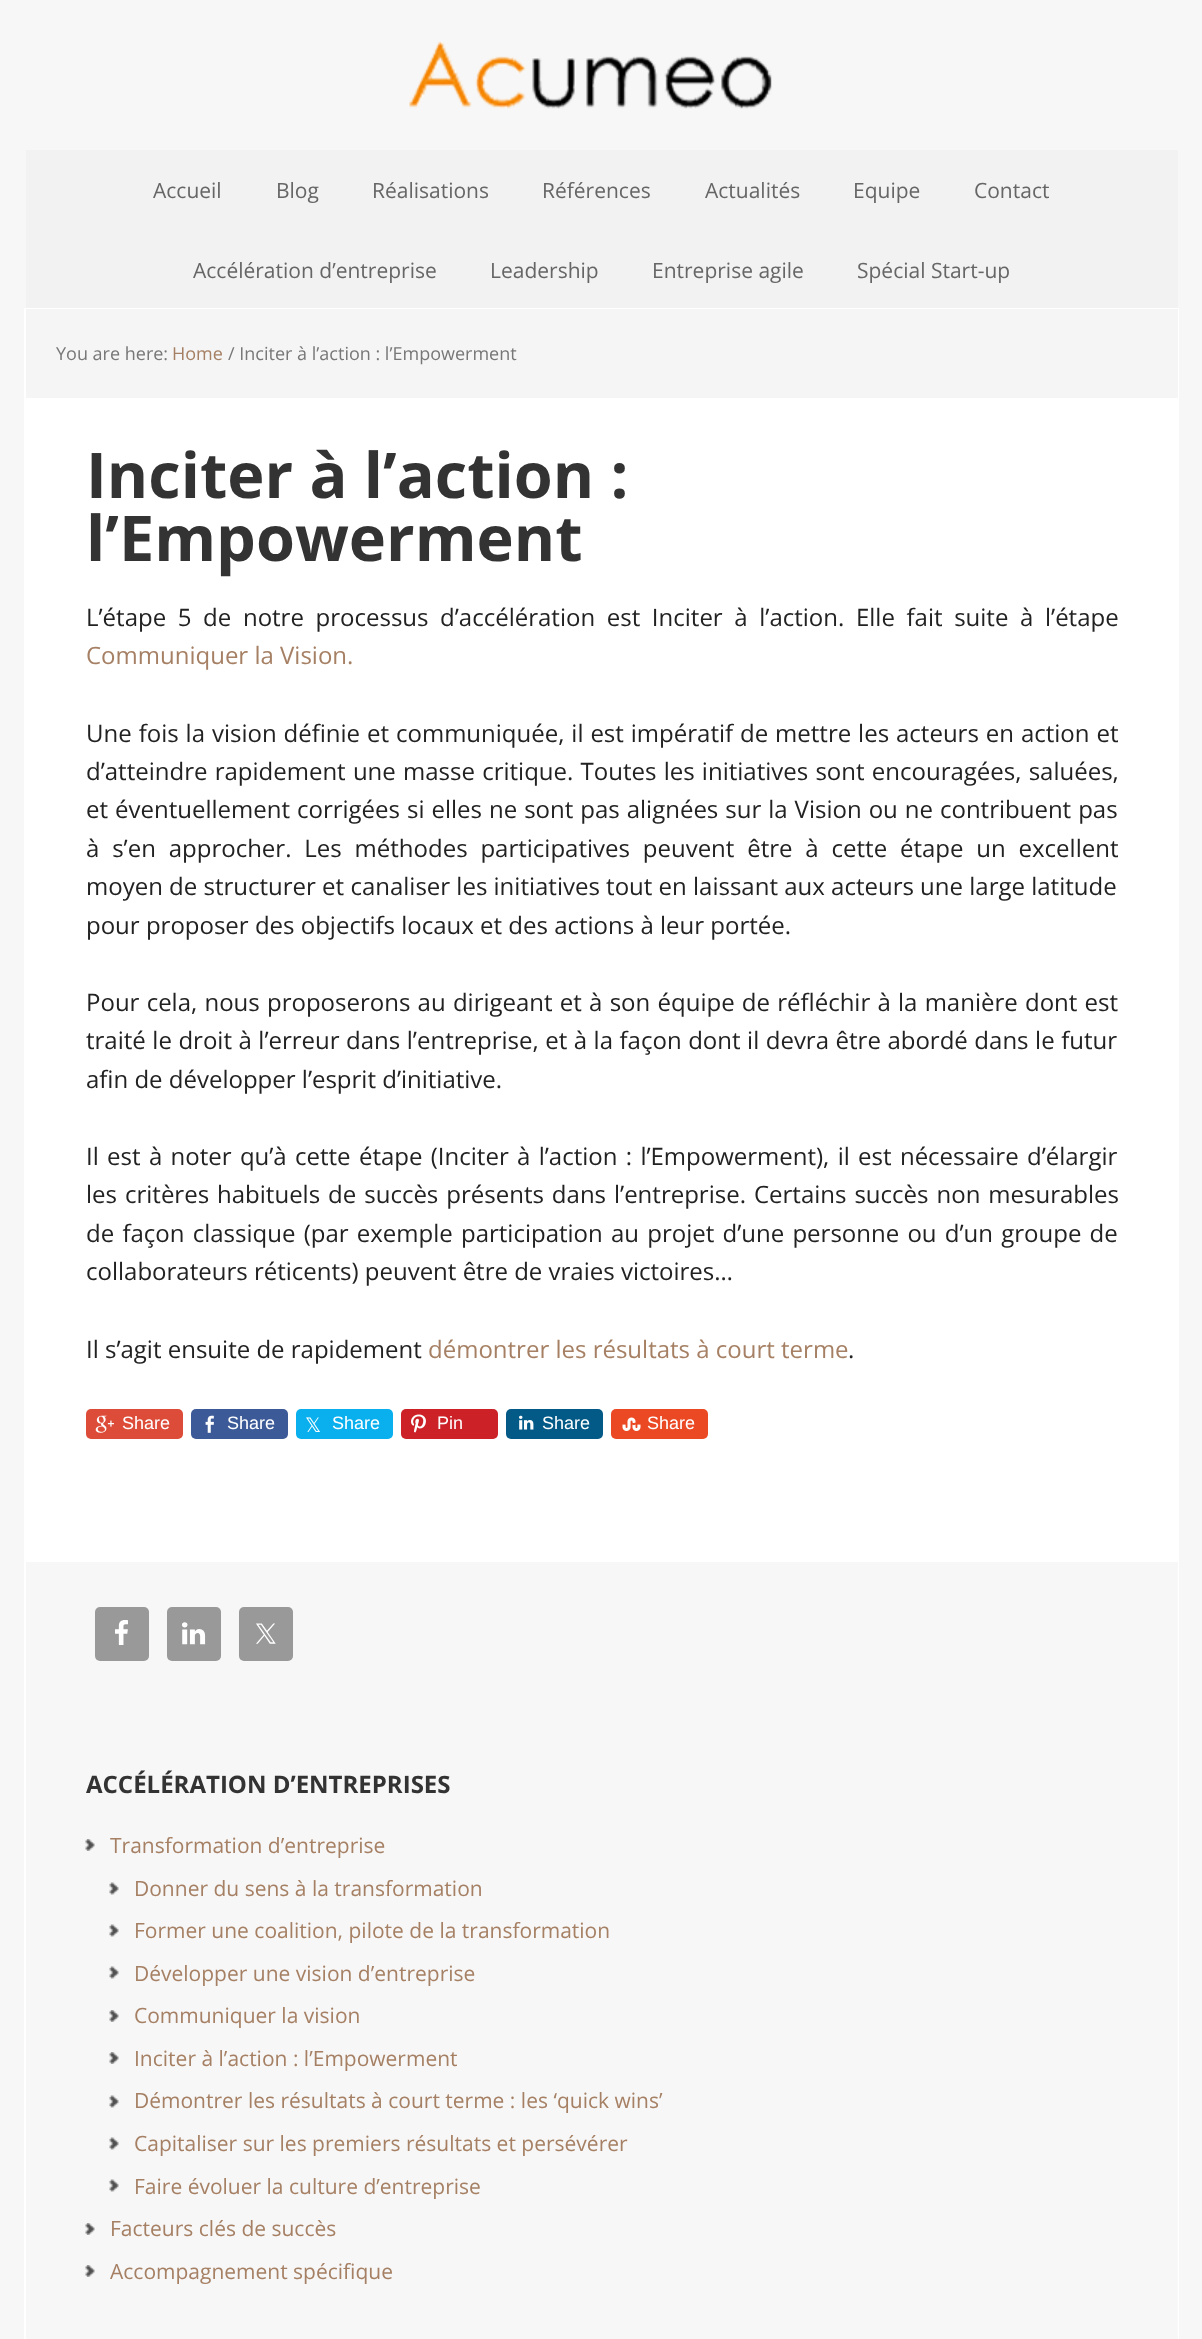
async function draw(canvas) {
	canvas.width = 1202;
	canvas.height = 2339;
	const c = canvas.getContext('2d');
	c.miterLimit = 4;
	c.fontKerning = 'normal';
	async function loadImage(src) {
		const img = new Image();
		img.src = src;
		await img.decode();
		return img;
	}

	c.fillStyle = '#f7f7f7';
	c.fillRect(0, 0, 1202, 2339);
	c.drawImage(await loadImage('img1.png'), 409, 41, 363, 68);
	c.fillStyle = '#f2f2f2';
	c.fillRect(26, 150, 1152, 158);
	c.font = '21px Open Sans';
	c.fillStyle = '#666';
	for (const [text, x, y] of [
		['Accueil', 153, 198],
		['Blog', 276, 198],
		['Réalisations', 372, 198],
		['Références', 542, 198],
		['Actualités', 705, 198],
		['Equipe', 853, 198],
		['Contact', 974, 198],
		['Accélération d’entreprise', 193, 278],
		['Leadership', 490, 278],
		['Entreprise agile', 652, 278],
		['Spécial Start-up', 857, 278],
	]) {
		c.fillText(text, x, y);
	}
	c.strokeStyle = '#fff';
	c.lineWidth = 2;
	c.strokeRect(25, 309, 1153, 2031);
	c.fillStyle = '#fff';
	c.fillRect(26, 398, 1151, 1164);
	c.fillStyle = '#f5f5f5';
	c.fillRect(26, 309, 1152, 89);
	c.font = '18px Open Sans';
	c.fillStyle = '#777';
	c.fillText('You are here:', 56, 360);
	c.fillStyle = '#a68064';
	c.fillText('Home', 172, 360);
	c.fillStyle = '#777';
	c.fillText('/ Inciter à l’action : l’Empowerment', 228, 360);
	c.font = 'bold 63px Open Sans';
	c.fillStyle = '#333';
	c.fillText('Inciter à l’action :', 86, 498);
	c.fillText('l’Empowerment', 86, 561);
	c.wordSpacing = '5.4px';
	c.font = '24px Open Sans';
	c.fillStyle = '#222';
	c.fillText('L’étape 5 de notre processus d’accélération est Inciter à l’action. Elle fait suite à l’étape', 86, 626);
	c.wordSpacing = '0px';
	c.fillStyle = '#a68064';
	c.fillText('Communiquer la Vision.', 86, 664);
	c.wordSpacing = '0.7px';
	c.fillStyle = '#222';
	c.fillText('Une fois la vision définie et communiquée, il est impératif de mettre les acteurs en action et', 86, 742);
	c.wordSpacing = '1px';
	c.fillText('d’atteindre rapidement une masse critique. Toutes les initiatives sont encouragées, saluées,', 86, 780);
	c.wordSpacing = '0.75px';
	c.fillText('et éventuellement corrigées si elles ne sont pas alignées sur la Vision ou ne contribuent pas', 86, 818);
	c.wordSpacing = '6.6px';
	c.fillText('à s’en approcher. Les méthodes participatives peuvent être à cette étape un excellent', 86, 857);
	c.wordSpacing = '0px';
	c.fillText('moyen de structurer et canaliser les initiatives tout en laissant aux acteurs une large latitude', 86, 895);
	c.fillText('pour proposer des objectifs locaux et des actions à leur portée.', 86, 934);
	c.wordSpacing = '1px';
	c.fillText('Pour cela, nous proposerons au dirigeant et à son équipe de réfléchir à la manière dont est', 86, 1011);
	c.wordSpacing = '0.3px';
	c.fillText('traité le droit à l’erreur dans l’entreprise, et à la façon dont il devra être abordé dans le futur', 86, 1049);
	c.wordSpacing = '0px';
	c.fillText('afin de développer l’esprit d’initiative.', 86, 1088);
	c.wordSpacing = '2.1px';
	c.fillText('Il est à noter qu’à cette étape (Inciter à l’action : l’Empowerment), il est nécessaire d’élargir', 86, 1165);
	c.wordSpacing = '1.75px';
	c.fillText('les critères habituels de succès présents dans l’entreprise. Certains succès non mesurables', 86, 1203);
	c.wordSpacing = '2px';
	c.fillText('de façon classique (par exemple participation au projet d’une personne ou d’un groupe de', 86, 1242);
	c.wordSpacing = '0px';
	c.fillText('collaborateurs réticents) peuvent être de vraies victoires…', 86, 1280);
	c.fillText('Il s’agit ensuite de rapidement', 86, 1358);
	c.fillStyle = '#a68064';
	c.fillText('démontrer les résultats à court terme', 428, 1358);
	c.fillStyle = '#222';
	c.fillText('.', 848, 1358);
	c.fillStyle = '#dd4c39';
	c.beginPath();
	c.roundRect(86, 1409, 97, 30, 5);
	c.fill();
	c.drawImage(await loadImage('img2.png'), 95, 1415, 19, 18);
	c.font = '18px Liberation Sans';
	c.fillStyle = '#fff';
	c.fillText('Share', 122, 1429);
	c.fillStyle = '#3d5a98';
	c.beginPath();
	c.roundRect(191, 1409, 97, 30, 5);
	c.fill();
	c.drawImage(await loadImage('img3.png'), 205, 1415, 9, 18);
	c.fillStyle = '#fff';
	c.fillText('Share', 227, 1429);
	c.fillStyle = '#09b0ed';
	c.beginPath();
	c.roundRect(296, 1409, 97, 30, 5);
	c.fill();
	c.font = '20px DejaVu Sans';
	c.fillStyle = '#fff';
	c.fillText('𝕏', 305, 1432);
	c.font = '18px Liberation Sans';
	c.fillText('Share', 332, 1429);
	c.fillStyle = '#cb2127';
	c.beginPath();
	c.roundRect(401, 1409, 97, 30, 5);
	c.fill();
	c.drawImage(await loadImage('img4.png'), 411, 1414, 15, 19);
	c.fillStyle = '#fff';
	c.fillText('Pin', 437, 1429);
	c.fillStyle = '#035a87';
	c.beginPath();
	c.roundRect(506, 1409, 97, 30, 5);
	c.fill();
	c.drawImage(await loadImage('img5.png'), 519, 1415, 15, 15);
	c.fillStyle = '#fff';
	c.fillText('Share', 542, 1429);
	c.fillStyle = '#eb4923';
	c.beginPath();
	c.roundRect(611, 1409, 97, 30, 5);
	c.fill();
	c.drawImage(await loadImage('img6.png'), 622, 1417, 19, 14);
	c.fillStyle = '#fff';
	c.fillText('Share', 647, 1429);
	c.fillStyle = '#f8f8f8';
	c.fillRect(1177, 1562, 1, 777);
	c.fillStyle = '#999';
	c.beginPath();
	c.roundRect(95, 1607, 54, 54, 5);
	c.fill();
	c.drawImage(await loadImage('img7.png'), 115, 1620, 13, 25);
	c.beginPath();
	c.roundRect(167, 1607, 54, 54, 5);
	c.fill();
	c.drawImage(await loadImage('img8.png'), 182, 1622, 24, 23);
	c.beginPath();
	c.roundRect(239, 1607, 54, 54, 5);
	c.fill();
	c.drawImage(await loadImage('img9.png'), 256, 1623, 20, 21);
	c.font = 'bold 24px Open Sans';
	c.fillStyle = '#333';
	c.fillText('ACCÉLÉRATION D’ENTREPRISES', 86, 1793);
	c.drawImage(await loadImage('img10.png'), 85, 1839, 10, 12);
	c.font = '21px Open Sans';
	c.fillStyle = '#a68064';
	c.fillText('Transformation d’entreprise', 110, 1853);
	c.drawImage(await loadImage('img11.png'), 109, 1882, 10, 13);
	c.fillText('Donner du sens à la transformation', 134, 1896);
	c.drawImage(await loadImage('img11.png'), 109, 1924, 10, 13);
	c.fillText('Former une coalition, pilote de la transformation', 134, 1938);
	c.drawImage(await loadImage('img11.png'), 109, 1966, 10, 13);
	c.fillText('Développer une vision d’entreprise', 134, 1981);
	c.drawImage(await loadImage('img10.png'), 109, 2010, 10, 12);
	c.fillText('Communiquer la vision', 134, 2023);
	c.drawImage(await loadImage('img10.png'), 109, 2052, 10, 12);
	c.fillText('Inciter à l’action : l’Empowerment', 134, 2066);
	c.drawImage(await loadImage('img11.png'), 109, 2095, 10, 13);
	c.fillText('Démontrer les résultats à court terme : les ‘quick wins’', 134, 2108);
	c.drawImage(await loadImage('img11.png'), 109, 2137, 10, 13);
	c.fillText('Capitaliser sur les premiers résultats et persévérer', 134, 2151);
	c.drawImage(await loadImage('img11.png'), 109, 2179, 10, 13);
	c.fillText('Faire évoluer la culture d’entreprise', 134, 2194);
	c.drawImage(await loadImage('img10.png'), 85, 2223, 10, 12);
	c.fillText('Facteurs clés de succès', 110, 2236);
	c.drawImage(await loadImage('img10.png'), 85, 2265, 10, 12);
	c.fillText('Accompagnement spécifique', 110, 2279);
}

draw(document.querySelector('canvas'));
